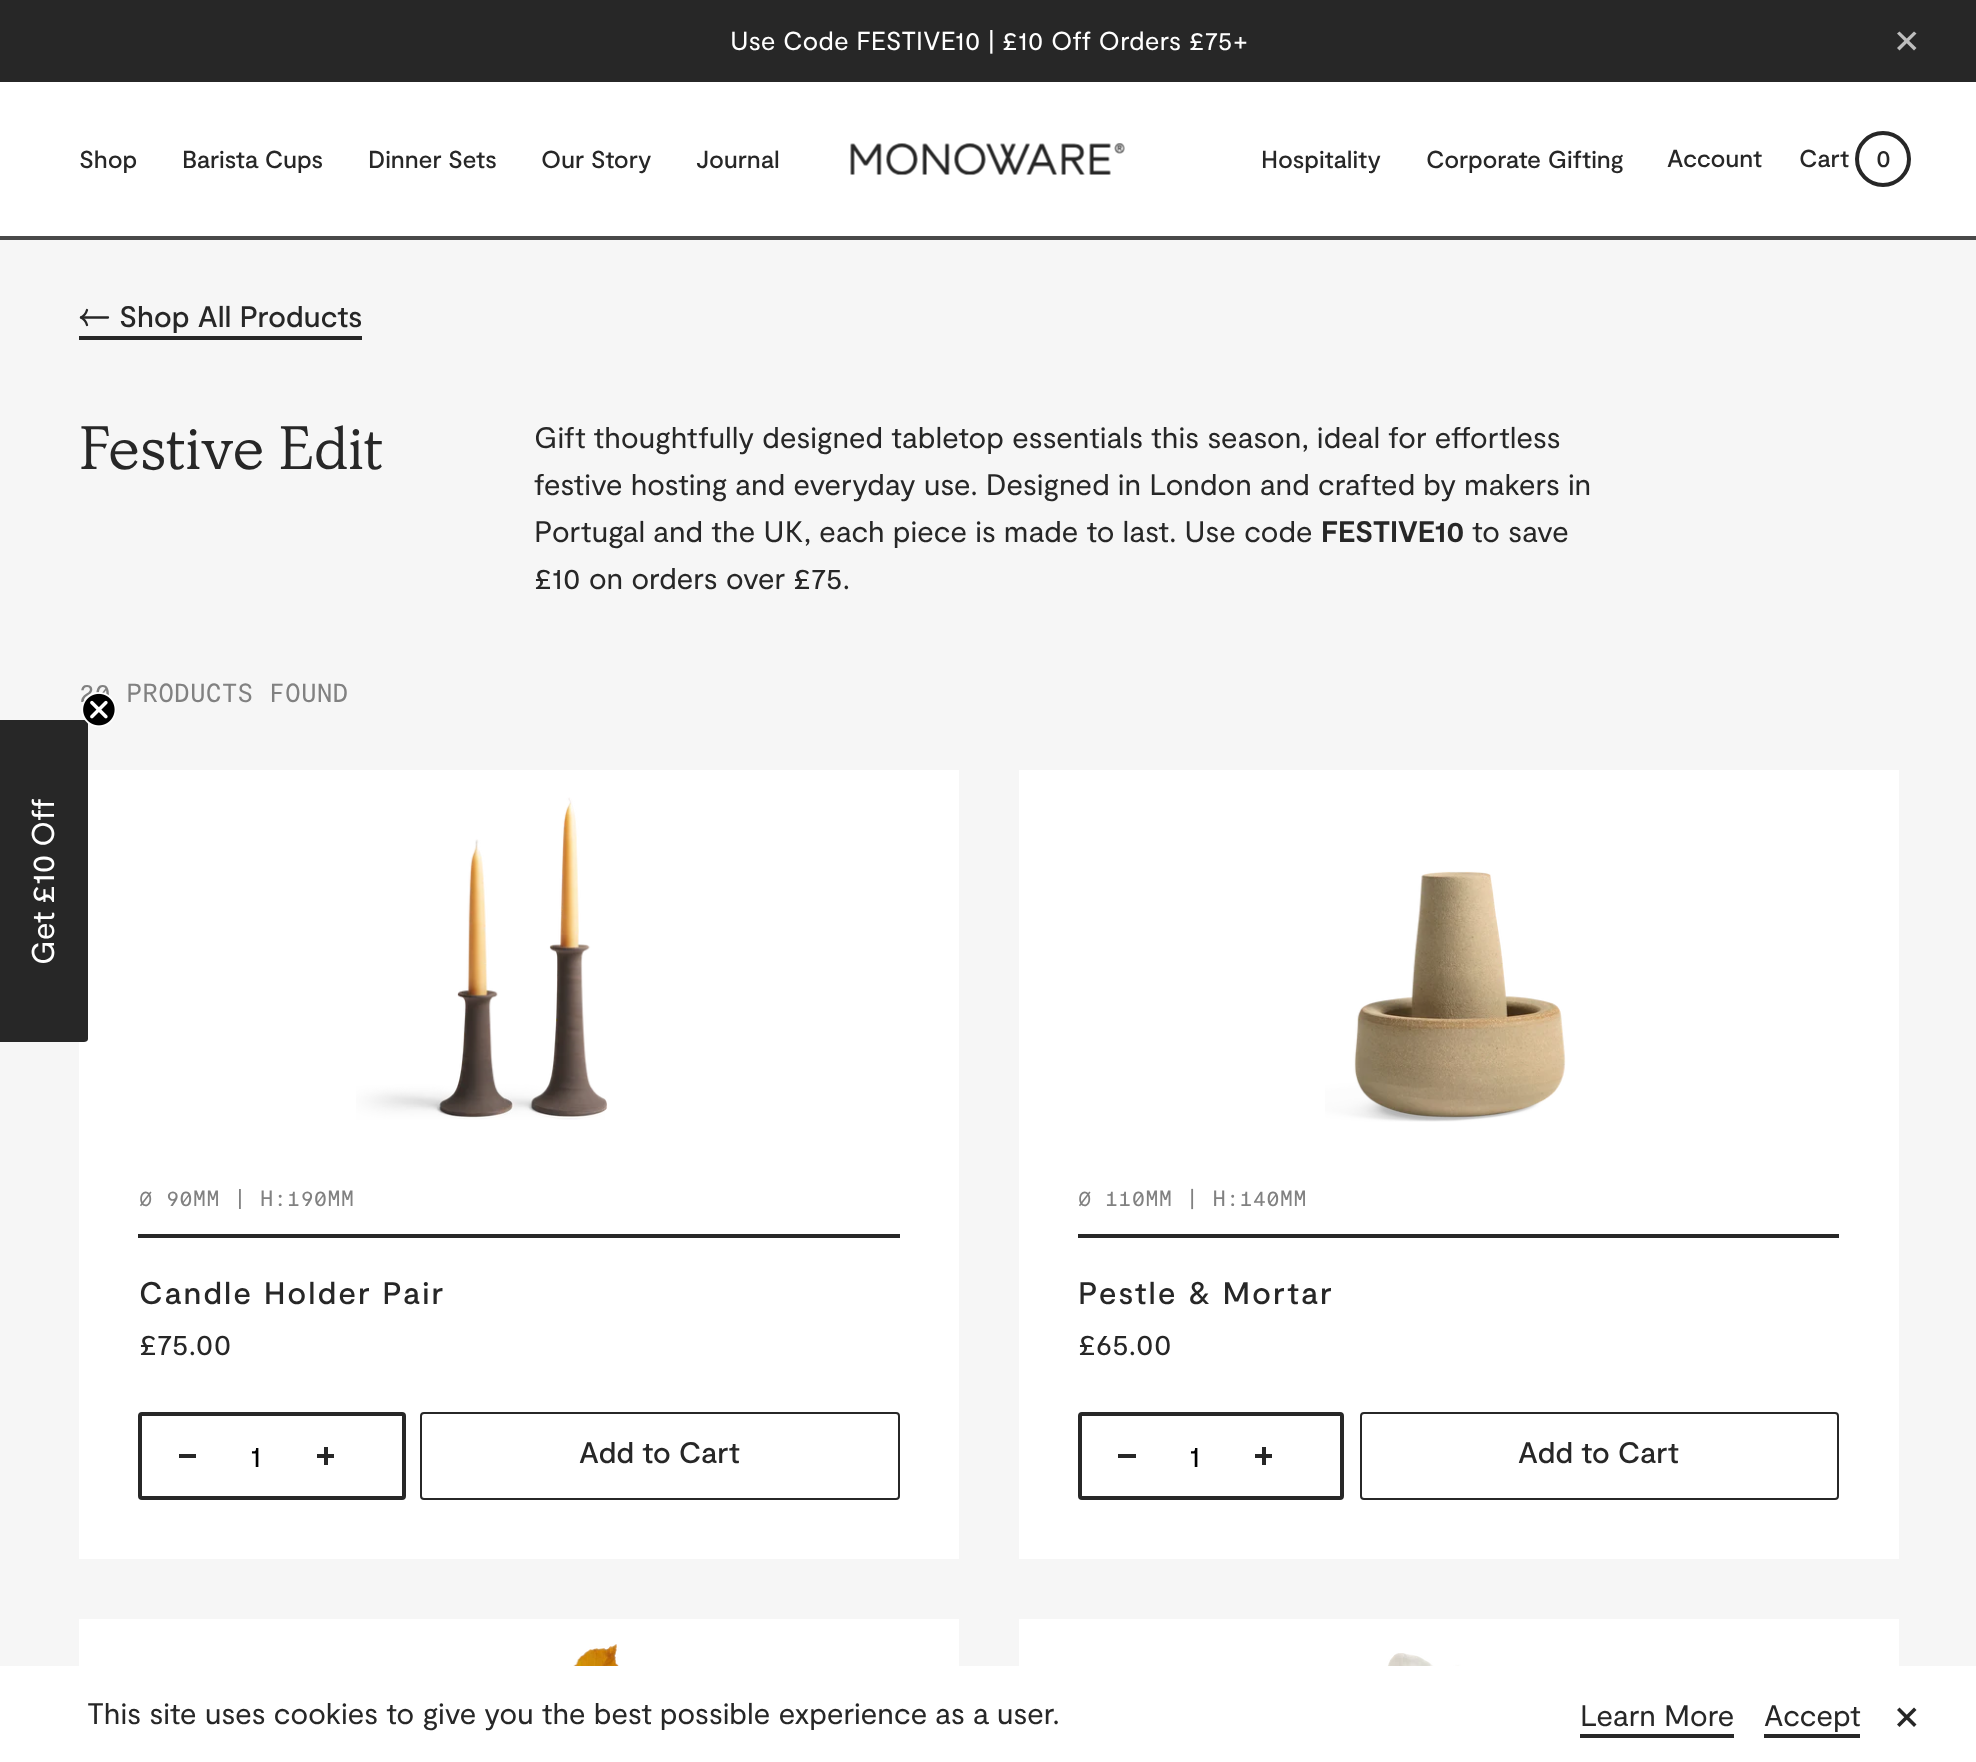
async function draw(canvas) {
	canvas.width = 1976;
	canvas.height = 1762;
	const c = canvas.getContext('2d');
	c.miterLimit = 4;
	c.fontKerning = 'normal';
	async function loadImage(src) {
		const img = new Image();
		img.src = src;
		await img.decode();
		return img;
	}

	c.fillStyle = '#f6f6f6';
	c.fillRect(0, 0, 1976, 1762);
	c.fillStyle = '#272727';
	c.fillRect(0, 0, 1976, 82);
	c.letterSpacing = '0.25px';
	c.font = '26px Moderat';
	c.fillStyle = '#fff';
	c.fillText('Use Code FESTIVE10 | £10 Off Orders £75+', 730, 50);
	c.fillStyle = '#bebebe';
	c.beginPath();
	c.moveTo(1899.5, 31.5);
	c.lineTo(1916.5, 48);
	c.lineTo(1914, 50.5);
	c.lineTo(1897, 33.5);
	c.closePath();
	c.fill();
	c.beginPath();
	c.moveTo(1916.5, 33.5);
	c.lineTo(1899.5, 50.5);
	c.lineTo(1897, 48);
	c.lineTo(1914, 31.5);
	c.closePath();
	c.fill();
	c.fillStyle = '#fff';
	c.fillRect(0, 82, 1976, 154);
	c.fillStyle = '#494949';
	c.fillRect(0, 236, 1976, 4);
	c.letterSpacing = '0px';
	c.font = '500 24.5px Moderat';
	c.fillStyle = '#272727';
	for (const [text, x, y] of [
		['Shop', 79, 168],
		['Barista Cups', 182, 168],
		['Dinner Sets', 368, 168],
		['Our Story', 541, 168],
		['Journal', 696, 168],
	]) {
		c.fillText(text, x, y);
	}
	c.drawImage(await loadImage('img1.png'), 850, 143, 275, 33);
	for (const [text, x, y] of [
		['Hospitality', 1261, 168],
		['Corporate Gifting', 1426, 168],
		['Account', 1667, 167],
		['Cart', 1799, 167],
	]) {
		c.fillText(text, x, y);
	}
	c.beginPath();
	c.arc(1883, 159, 26, 0, 2 * Math.PI);
	c.strokeStyle = '#272727';
	c.lineWidth = 4;
	c.stroke();
	c.fillText('0', 1876, 167);
	c.fillStyle = '#fff';
	c.fillRect(79, 770, 880, 789);
	c.fillStyle = '#272727';
	c.beginPath();
	c.moveTo(0, 1042);
	c.lineTo(0, 720);
	c.lineTo(84, 720);
	c.bezierCurveTo(86, 720, 88, 722, 88, 724);
	c.lineTo(88, 1039);
	c.bezierCurveTo(88, 1041, 86, 1042, 84, 1042);
	c.closePath();
	c.fill();
	c.letterSpacing = '0.1px';
	c.font = '26.25px "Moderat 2"';
	c.fillStyle = '#818181';
	c.fillText('20 PRODUCTS FOUND', 79, 702);
	c.drawImage(await loadImage('img2.png'), 81, 692, 35, 35);
	c.wordSpacing = '-1px';
	c.font = '31.5px "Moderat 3"';
	c.fillStyle = '#fff';
	c.save();
	c.translate(54, 965);
	c.rotate(-90 * Math.PI / 180);
	c.fillText('Get £10 Off', 0, 0);
	c.restore();
	c.beginPath();
	c.moveTo(87, 325);
	c.bezierCurveTo(86, 321.5, 84, 319, 81, 317.5);
	c.bezierCurveTo(84, 316, 86, 313.5, 87, 310);
	c.lineWidth = 2.3;
	c.lineCap = 'round';
	c.lineJoin = 'round';
	c.stroke();
	c.letterSpacing = '0px';
	c.wordSpacing = '0px';
	c.font = '500 29.75px Moderat';
	c.fillStyle = '#272727';
	c.fillText('Shop All Products', 119, 327);
	c.beginPath();
	c.moveTo(81, 317.5);
	c.lineTo(108, 317.5);
	c.lineJoin = 'miter';
	c.stroke();
	c.fillRect(79, 336, 283, 4);
	c.letterSpacing = '0.25px';
	c.font = '61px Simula';
	c.fillText('Festive Edit', 79, 469);
	c.letterSpacing = '0px';
	c.font = '29.75px Moderat';
	for (const [text, x, y] of [
		['Gift thoughtfully designed tabletop essentials this season, ideal for effortless', 534, 448],
		['festive hosting and everyday use. Designed in London and crafted by makers in', 534, 495],
		['Portugal and the UK, each piece is made to last. Use code', 534, 542],
	]) {
		c.fillText(text, x, y);
	}
	c.font = 'bold 29.75px Moderat';
	c.fillText('FESTIVE10', 1321, 542);
	c.font = '29.75px Moderat';
	c.fillText('to save', 1472, 542);
	c.fillText('£10 on orders over £75.', 534, 589);
	c.drawImage(await loadImage('img3.png'), 356, 797, 252, 323);
	c.fillRect(138, 1234, 762, 4);
	c.letterSpacing = '0.1px';
	c.font = '22.25px "Moderat 2"';
	c.fillStyle = '#818181';
	c.fillText('∅ 90MM | H:190MM', 139, 1206);
	c.letterSpacing = '2.1px';
	c.font = '500 31.25px Moderat';
	c.fillStyle = '#272727';
	c.fillText('Candle Holder Pair', 139, 1304);
	c.letterSpacing = '0px';
	c.font = '29.75px Moderat';
	c.fillText('£75.00', 139, 1355);
	c.beginPath();
	c.roundRect(140, 1414, 264, 84, 2);
	c.lineWidth = 4;
	c.stroke();
	c.fillRect(179, 1454, 17, 4);
	c.fillStyle = '#000';
	c.fillText('1', 250, 1467);
	c.fillStyle = '#272727';
	c.fillRect(317, 1454, 17, 4);
	c.fillRect(324, 1447, 4, 18);
	c.beginPath();
	c.roundRect(421, 1413, 478, 86, 3);
	c.lineWidth = 2;
	c.stroke();
	c.font = '500 29.75px Moderat';
	c.fillText('Add to Cart', 579, 1463);
	c.fillStyle = '#fff';
	c.fillRect(1019, 770, 880, 789);
	c.drawImage(await loadImage('img4.png'), 1325, 871, 241, 251);
	c.fillStyle = '#272727';
	c.fillRect(1078, 1234, 761, 4);
	c.letterSpacing = '0.1px';
	c.font = '22.25px "Moderat 2"';
	c.fillStyle = '#818181';
	c.fillText('∅ 110MM | H:140MM', 1078, 1206);
	c.letterSpacing = '2.1px';
	c.font = '500 31.25px Moderat';
	c.fillStyle = '#272727';
	c.fillText('Pestle & Mortar', 1078, 1304);
	c.letterSpacing = '0px';
	c.font = '29.75px Moderat';
	c.fillText('£65.00', 1078, 1355);
	c.beginPath();
	c.roundRect(1080, 1414, 262, 84, 2);
	c.lineWidth = 4;
	c.stroke();
	c.fillRect(1118, 1454, 18, 4);
	c.fillStyle = '#000';
	c.fillText('1', 1189, 1467);
	c.fillStyle = '#272727';
	c.fillRect(1255, 1454, 17, 4);
	c.fillRect(1262, 1447, 4, 18);
	c.beginPath();
	c.roundRect(1361, 1413, 477, 86, 3);
	c.lineWidth = 2;
	c.stroke();
	c.font = '500 29.75px Moderat';
	c.fillText('Add to Cart', 1518, 1463);
	c.fillStyle = '#fff';
	c.fillRect(79, 1619, 880, 47);
	c.drawImage(await loadImage('img5.png'), 573, 1644, 46, 22);
	c.fillRect(1019, 1619, 880, 47);
	c.drawImage(await loadImage('img6.png'), 1387, 1653, 74, 13);
	c.fillRect(0, 1666, 1976, 96);
	c.font = '29.75px Moderat';
	c.fillStyle = '#272727';
	c.fillText('This site uses cookies to give you the best possible experience as a user.', 87, 1724);
	c.fillText('Learn More', 1580, 1726);
	c.fillRect(1580, 1734, 154, 4);
	c.fillText('Accept', 1764, 1726);
	c.fillRect(1764, 1734, 96, 4);
	c.beginPath();
	c.moveTo(1899.5, 1707.5);
	c.lineTo(1916.5, 1724.5);
	c.lineTo(1914, 1727);
	c.lineTo(1897, 1710);
	c.closePath();
	c.fill();
	c.beginPath();
	c.moveTo(1916.5, 1710);
	c.lineTo(1899.5, 1727);
	c.lineTo(1897, 1724.5);
	c.lineTo(1914, 1707.5);
	c.closePath();
	c.fill();
}

draw(document.querySelector('canvas'));
